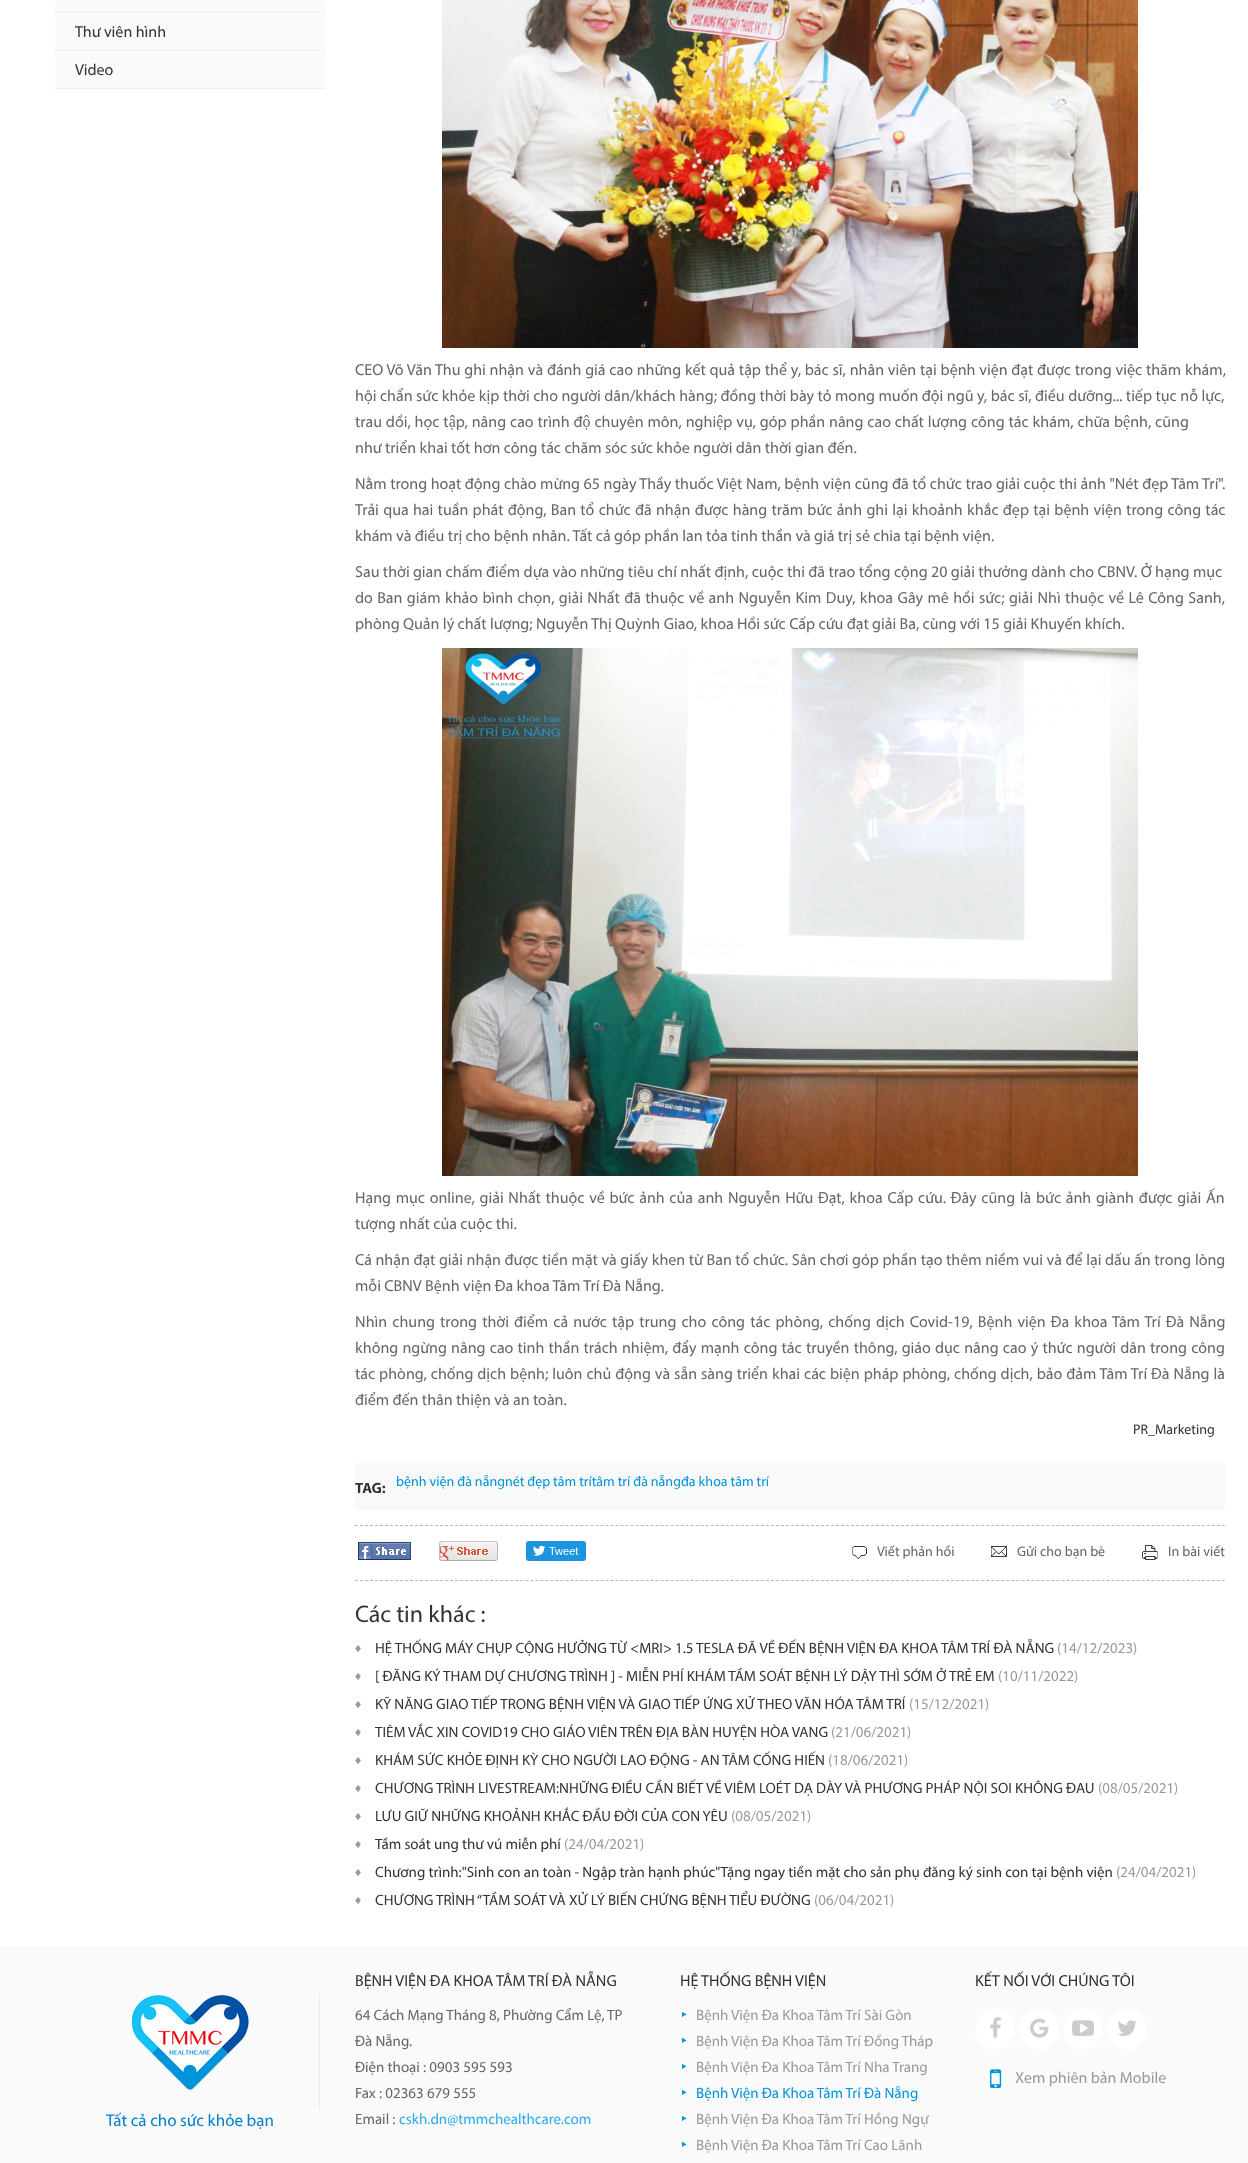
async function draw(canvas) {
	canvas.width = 1248;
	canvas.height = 2163;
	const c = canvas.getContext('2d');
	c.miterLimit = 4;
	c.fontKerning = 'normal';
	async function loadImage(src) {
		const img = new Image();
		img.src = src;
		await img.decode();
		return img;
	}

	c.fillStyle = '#fff';
	c.fillRect(0, 0, 1248, 2163);
	for (const [x, y, w, h, color] of [
		[55, 0, 270, 88, '#fafafa'],
		[55, 12, 270, 1, '#efefef'],
		[55, 13, 270, 1, '#fff'],
	]) {
		c.fillStyle = color;
		c.fillRect(x, y, w, h);
	}
	c.font = '16px Myriad';
	c.fillStyle = '#333';
	c.fillText('Thư viên hình', 75, 37);
	c.fillStyle = '#efefef';
	c.fillRect(55, 50, 270, 1);
	c.fillStyle = '#fff';
	c.fillRect(55, 51, 270, 1);
	c.fillStyle = '#333';
	c.fillText('Video', 75, 75);
	c.fillStyle = '#efefef';
	c.fillRect(55, 88, 270, 1);
	c.drawImage(await loadImage('img1.png'), 442, 0, 696, 348);
	c.wordSpacing = '0.4px';
	c.fillStyle = '#666';
	c.fillText('CEO Võ Văn Thu ghi nhận và đánh giá cao những kết quả tập thể y, bác sĩ, nhân viên tại bệnh viện đạt được trong việc thăm khám,', 355, 375);
	c.wordSpacing = '0.1px';
	c.fillText('hội chẩn sức khỏe kịp thời cho người dân/khách hàng; đồng thời bày tỏ mong muốn đội ngũ y, bác sĩ, điều dưỡng... tiếp tục nỗ lực,', 355, 401);
	c.wordSpacing = '0.5px';
	c.fillText('trau dồi, học tập, nâng cao trình độ chuyên môn, nghiệp vụ, góp phần nâng cao chất lượng công tác khám, chữa bệnh, cũng', 355, 427);
	c.wordSpacing = '0px';
	c.fillText('như triển khai tốt hơn công tác chăm sóc sức khỏe người dân thời gian đến.', 355, 453);
	c.wordSpacing = '0.15px';
	c.fillText('Nằm trong hoạt động chào mừng 65 ngày Thầy thuốc Việt Nam, bệnh viện cũng đã tổ chức trao giải cuộc thi ảnh "Nét đẹp Tâm Trí".', 355, 489);
	c.wordSpacing = '0.9px';
	c.fillText('Trải qua hai tuần phát động, Ban tổ chức đã nhận được hàng trăm bức ảnh ghi lại khoảnh khắc đẹp tại bệnh viện trong công tác', 355, 515);
	c.wordSpacing = '0px';
	c.fillText('khám và điều trị cho bệnh nhân. Tất cả góp phần lan tỏa tinh thần và giá trị sẻ chia tại bệnh viện.', 355, 541);
	c.fillText('Sau thời gian chấm điểm dựa vào những tiêu chí nhất định, cuộc thi đã trao tổng cộng 20 giải thưởng dành cho CBNV. Ở hạng mục', 355, 577);
	c.wordSpacing = '1px';
	c.fillText('do Ban giám khảo bình chọn, giải Nhất đã thuộc về anh Nguyễn Kim Duy, khoa Gây mê hồi sức; giải Nhì thuộc về Lê Công Sanh,', 355, 603);
	c.wordSpacing = '0px';
	c.fillText('phòng Quản lý chất lượng; Nguyễn Thị Quỳnh Giao, khoa Hồi sức Cấp cứu đạt giải Ba, cùng với 15 giải Khuyến khích.', 355, 629);
	c.drawImage(await loadImage('img2.png'), 442, 648, 696, 528);
	c.wordSpacing = '1.3px';
	c.fillText('Hạng mục online, giải Nhất thuộc về bức ảnh của anh Nguyễn Hữu Đạt, khoa Cấp cứu. Đây cũng là bức ảnh giành được giải Ấn', 355, 1203);
	c.wordSpacing = '0px';
	c.fillText('tượng nhất của cuộc thi.', 355, 1229);
	c.wordSpacing = '0.2px';
	c.fillText('Cá nhận đạt giải nhận được tiền mặt và giấy khen từ Ban tổ chức. Sân chơi góp phần tạo thêm niềm vui và để lại dấu ấn trong lòng', 355, 1265);
	c.wordSpacing = '0px';
	c.fillText('mỗi CBNV Bệnh viện Đa khoa Tâm Trí Đà Nẵng.', 355, 1291);
	c.wordSpacing = '1.7px';
	c.fillText('Nhìn chung trong thời điểm cả nước tập trung cho công tác phòng, chống dịch Covid-19, Bệnh viện Đa khoa Tâm Trí Đà Nẵng', 355, 1327);
	c.wordSpacing = '0.8px';
	c.fillText('không ngừng nâng cao tinh thần trách nhiệm, đẩy mạnh công tác truyền thông, giáo dục nâng cao ý thức người dân trong công', 355, 1353);
	c.wordSpacing = '0.55px';
	c.fillText('tác phòng, chống dịch bệnh; luôn chủ động và sẵn sàng triển khai các biện pháp phòng, chống dịch, bảo đảm Tâm Trí Đà Nẵng là', 355, 1379);
	c.wordSpacing = '0px';
	c.fillText('điểm đến thân thiện và an toàn.', 355, 1405);
	c.font = '14px Myriad';
	c.fillStyle = '#333';
	c.fillText('PR_Marketing', 1133, 1434);
	c.fillStyle = '#f9f9f9';
	c.fillRect(355, 1463, 870, 47);
	c.font = 'bold 15px Myriad';
	c.fillStyle = '#333';
	c.fillText('TAG:', 355, 1493);
	c.font = '14px Myriad';
	c.fillStyle = '#0094da';
	c.fillText('bệnh viện đà nẵngnét đẹp tâm trítâm trí đà nẵngđa khoa tâm trí', 396, 1486);
	c.beginPath();
	c.moveTo(355, 1525.5);
	c.lineTo(1225, 1525.5);
	c.strokeStyle = '#b8b7b7';
	c.setLineDash([3, 2.01]);
	c.stroke();
	c.beginPath();
	c.moveTo(355, 1580.5);
	c.lineTo(1225, 1580.5);
	c.stroke();
	c.drawImage(await loadImage('img3.png'), 358, 1542, 53, 18);
	c.drawImage(await loadImage('img4.png'), 439, 1541, 59, 20);
	c.drawImage(await loadImage('img5.png'), 526, 1541, 60, 20);
	c.drawImage(await loadImage('img6.png'), 852, 1546, 15, 13);
	c.fillStyle = '#666';
	c.fillText('Viết phản hồi', 877, 1556);
	c.drawImage(await loadImage('img7.png'), 991, 1546, 16, 11);
	c.fillText('Gửi cho bạn bè', 1017, 1556);
	c.drawImage(await loadImage('img8.png'), 1142, 1545, 16, 15);
	c.fillText('In bài viết', 1168, 1556);
	c.font = '24px Myriad';
	c.fillStyle = '#333';
	c.fillText('Các tin khác :', 355, 1622);
	c.drawImage(await loadImage('img9.png'), 355, 1645, 6, 7);
	c.font = '15px Myriad';
	c.fillText('HỆ THỐNG MÁY CHỤP CỘNG HƯỞNG TỪ <MRI> 1.5 TESLA ĐÃ VỀ ĐẾN BỆNH VIỆN ĐA KHOA TÂM TRÍ ĐÀ NẴNG', 375, 1653);
	c.fillStyle = '#999';
	c.fillText('(14/12/2023)', 1057, 1653);
	c.drawImage(await loadImage('img9.png'), 355, 1673, 6, 7);
	c.fillStyle = '#333';
	c.fillText('[ ĐĂNG KÝ THAM DỰ CHƯƠNG TRÌNH ] - MIỄN PHÍ KHÁM TẦM SOÁT BỆNH LÝ DẬY THÌ SỚM Ở TRẺ EM', 375, 1681);
	c.fillStyle = '#999';
	c.fillText('(10/11/2022)', 998, 1681);
	c.drawImage(await loadImage('img9.png'), 355, 1701, 6, 7);
	c.fillStyle = '#333';
	c.fillText('KỸ NĂNG GIAO TIẾP TRONG BỆNH VIỆN VÀ GIAO TIẾP ỨNG XỬ THEO VĂN HÓA TÂM TRÍ', 375, 1709);
	c.fillStyle = '#999';
	c.fillText('(15/12/2021)', 909, 1709);
	c.drawImage(await loadImage('img9.png'), 355, 1729, 6, 7);
	c.fillStyle = '#333';
	c.fillText('TIÊM VẮC XIN COVID19 CHO GIÁO VIÊN TRÊN ĐỊA BÀN HUYỆN HÒA VANG', 375, 1737);
	c.fillStyle = '#999';
	c.fillText('(21/06/2021)', 831, 1737);
	c.drawImage(await loadImage('img9.png'), 355, 1757, 6, 7);
	c.fillStyle = '#333';
	c.fillText('KHÁM SỨC KHỎE ĐỊNH KỲ CHO NGƯỜI LAO ĐỘNG - AN TÂM CỐNG HIẾN', 375, 1765);
	c.fillStyle = '#999';
	c.fillText('(18/06/2021)', 828, 1765);
	c.drawImage(await loadImage('img9.png'), 355, 1785, 6, 7);
	c.fillStyle = '#333';
	c.fillText('CHƯƠNG TRÌNH LIVESTREAM:NHỮNG ĐIỀU CẦN BIẾT VỀ VIÊM LOÉT DẠ DÀY VÀ PHƯƠNG PHÁP NỘI SOI KHÔNG ĐAU', 375, 1793);
	c.fillStyle = '#999';
	c.fillText('(08/05/2021)', 1098, 1793);
	c.drawImage(await loadImage('img9.png'), 355, 1813, 6, 7);
	c.fillStyle = '#333';
	c.fillText('LƯU GIỮ NHỮNG KHOẢNH KHẮC ĐẦU ĐỜI CỦA CON YÊU', 375, 1821);
	c.fillStyle = '#999';
	c.fillText('(08/05/2021)', 731, 1821);
	c.drawImage(await loadImage('img9.png'), 355, 1841, 6, 7);
	c.fillStyle = '#333';
	c.fillText('Tầm soát ung thư vú miễn phí', 375, 1849);
	c.fillStyle = '#999';
	c.fillText('(24/04/2021)', 564, 1849);
	c.drawImage(await loadImage('img9.png'), 355, 1869, 6, 7);
	c.fillStyle = '#333';
	c.fillText('Chương trình:"Sinh con an toàn - Ngập tràn hạnh phúc"Tặng ngay tiền mặt cho sản phụ đăng ký sinh con tại bệnh viện', 375, 1877);
	c.fillStyle = '#999';
	c.fillText('(24/04/2021)', 1116, 1877);
	c.drawImage(await loadImage('img9.png'), 355, 1897, 6, 7);
	c.fillStyle = '#333';
	c.fillText('CHƯƠNG TRÌNH “TẦM SOÁT VÀ XỬ LÝ BIẾN CHỨNG BỆNH TIỂU ĐƯỜNG', 375, 1905);
	c.fillStyle = '#999';
	c.fillText('(06/04/2021)', 814, 1905);
	c.fillStyle = '#fafafa';
	c.fillRect(0, 1946, 1248, 217);
	c.fillStyle = '#ebebeb';
	c.fillRect(319, 1995, 1, 115);
	c.drawImage(await loadImage('img10.png'), 132, 1995, 117, 95);
	c.font = '17px Myriad';
	c.fillStyle = '#0080cf';
	c.fillText('Tất cả cho sức khỏe bạn', 106, 2126);
	c.font = '16px Myriad';
	c.fillStyle = '#333';
	c.fillText('BỆNH VIỆN ĐA KHOA TÂM TRÍ ĐÀ NẴNG', 355, 1986);
	c.font = '15px Myriad';
	c.fillStyle = '#666';
	for (const [text, x, y] of [
		['64 Cách Mạng Tháng 8, Phường Cẩm Lệ, TP', 355, 2020],
		['Đà Nẵng.', 355, 2046],
		['Điện thoại : 0903 595 593', 355, 2072],
		['Fax : 02363 679 555', 355, 2098],
		['Email :', 355, 2124],
	]) {
		c.fillText(text, x, y);
	}
	c.fillStyle = '#2aacf1';
	c.fillText('cskh.dn@tmmchealthcare.com', 399, 2124);
	c.font = '16px Myriad';
	c.fillStyle = '#333';
	c.fillText('HỆ THỐNG BỆNH VIỆN', 680, 1986);
	c.drawImage(await loadImage('img11.png'), 682, 2011, 5, 6);
	c.font = '15px Myriad';
	c.fillStyle = '#999';
	c.fillText('Bệnh Viện Đa Khoa Tâm Trí Sài Gòn', 696, 2020);
	c.drawImage(await loadImage('img11.png'), 682, 2037, 5, 6);
	c.fillText('Bệnh Viện Đa Khoa Tâm Trí Đồng Tháp', 696, 2046);
	c.drawImage(await loadImage('img11.png'), 682, 2063, 5, 6);
	c.fillText('Bệnh Viện Đa Khoa Tâm Trí Nha Trang', 696, 2072);
	c.drawImage(await loadImage('img11.png'), 682, 2089, 5, 6);
	c.fillStyle = '#0094da';
	c.fillText('Bệnh Viện Đa Khoa Tâm Trí Đà Nẵng', 696, 2098);
	c.drawImage(await loadImage('img11.png'), 682, 2115, 5, 6);
	c.fillStyle = '#999';
	c.fillText('Bệnh Viện Đa Khoa Tâm Trí Hồng Ngự', 696, 2124);
	c.drawImage(await loadImage('img11.png'), 682, 2141, 5, 6);
	c.fillText('Bệnh Viện Đa Khoa Tâm Trí Cao Lãnh', 696, 2150);
	c.font = '16px Myriad';
	c.fillStyle = '#333';
	c.fillText('KẾT NỐI VỚI CHÚNG TÔI', 975, 1986);
	c.fillStyle = '#fff';
	c.beginPath();
	c.arc(995, 2029, 20, 0, 2 * Math.PI);
	c.fill();
	c.drawImage(await loadImage('img12.png'), 990, 2017, 11, 21);
	c.beginPath();
	c.arc(1039, 2029, 20, 0, 2 * Math.PI);
	c.fill();
	c.drawImage(await loadImage('img13.png'), 1030, 2018, 19, 20);
	c.beginPath();
	c.arc(1083, 2029, 20, 0, 2 * Math.PI);
	c.fill();
	c.drawImage(await loadImage('img14.png'), 1072, 2020, 22, 16);
	c.beginPath();
	c.arc(1127, 2029, 20, 0, 2 * Math.PI);
	c.fill();
	c.drawImage(await loadImage('img15.png'), 1118, 2020, 19, 16);
	c.drawImage(await loadImage('img16.png'), 990, 2069, 12, 19);
	c.fillStyle = '#999';
	c.fillText('Xem phiên bản Mobile', 1015, 2083);
}

draw(document.querySelector('canvas'));
